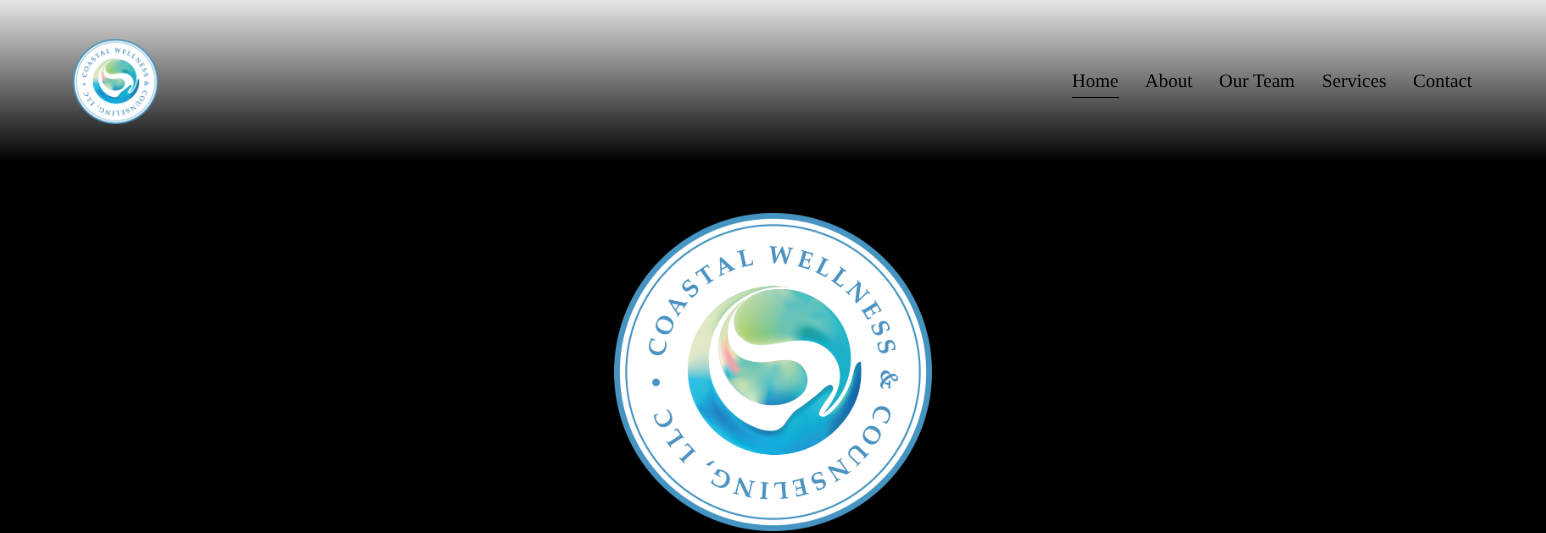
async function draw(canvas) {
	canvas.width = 1546;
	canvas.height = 533;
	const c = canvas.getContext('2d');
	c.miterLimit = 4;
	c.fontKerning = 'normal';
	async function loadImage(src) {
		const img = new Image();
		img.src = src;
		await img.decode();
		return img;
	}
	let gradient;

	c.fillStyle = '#000';
	c.fillRect(0, 0, 1546, 533);
	gradient = c.createLinearGradient(773, 0, 773, 162);
	gradient.addColorStop(0, '#e6e6e6');
	gradient.addColorStop(1, '#000');
	c.fillStyle = gradient;
	c.fillRect(0, 0, 1546, 160);
	c.drawImage(await loadImage('img1.png'), 73, 39, 85, 85);
	c.fillStyle = '#000';
	c.fillRect(1072, 97, 47, 1);
	c.font = '19px Liberation Serif';
	for (const [text, x, y] of [
		['Home', 1072, 87],
		['About', 1145, 87],
		['Our Team', 1219, 87],
		['Services', 1322, 87],
		['Contact', 1413, 87],
	]) {
		c.fillText(text, x, y);
	}
	c.drawImage(await loadImage('img2.png'), 614, 213, 318, 318);
}

draw(document.querySelector('canvas'));
